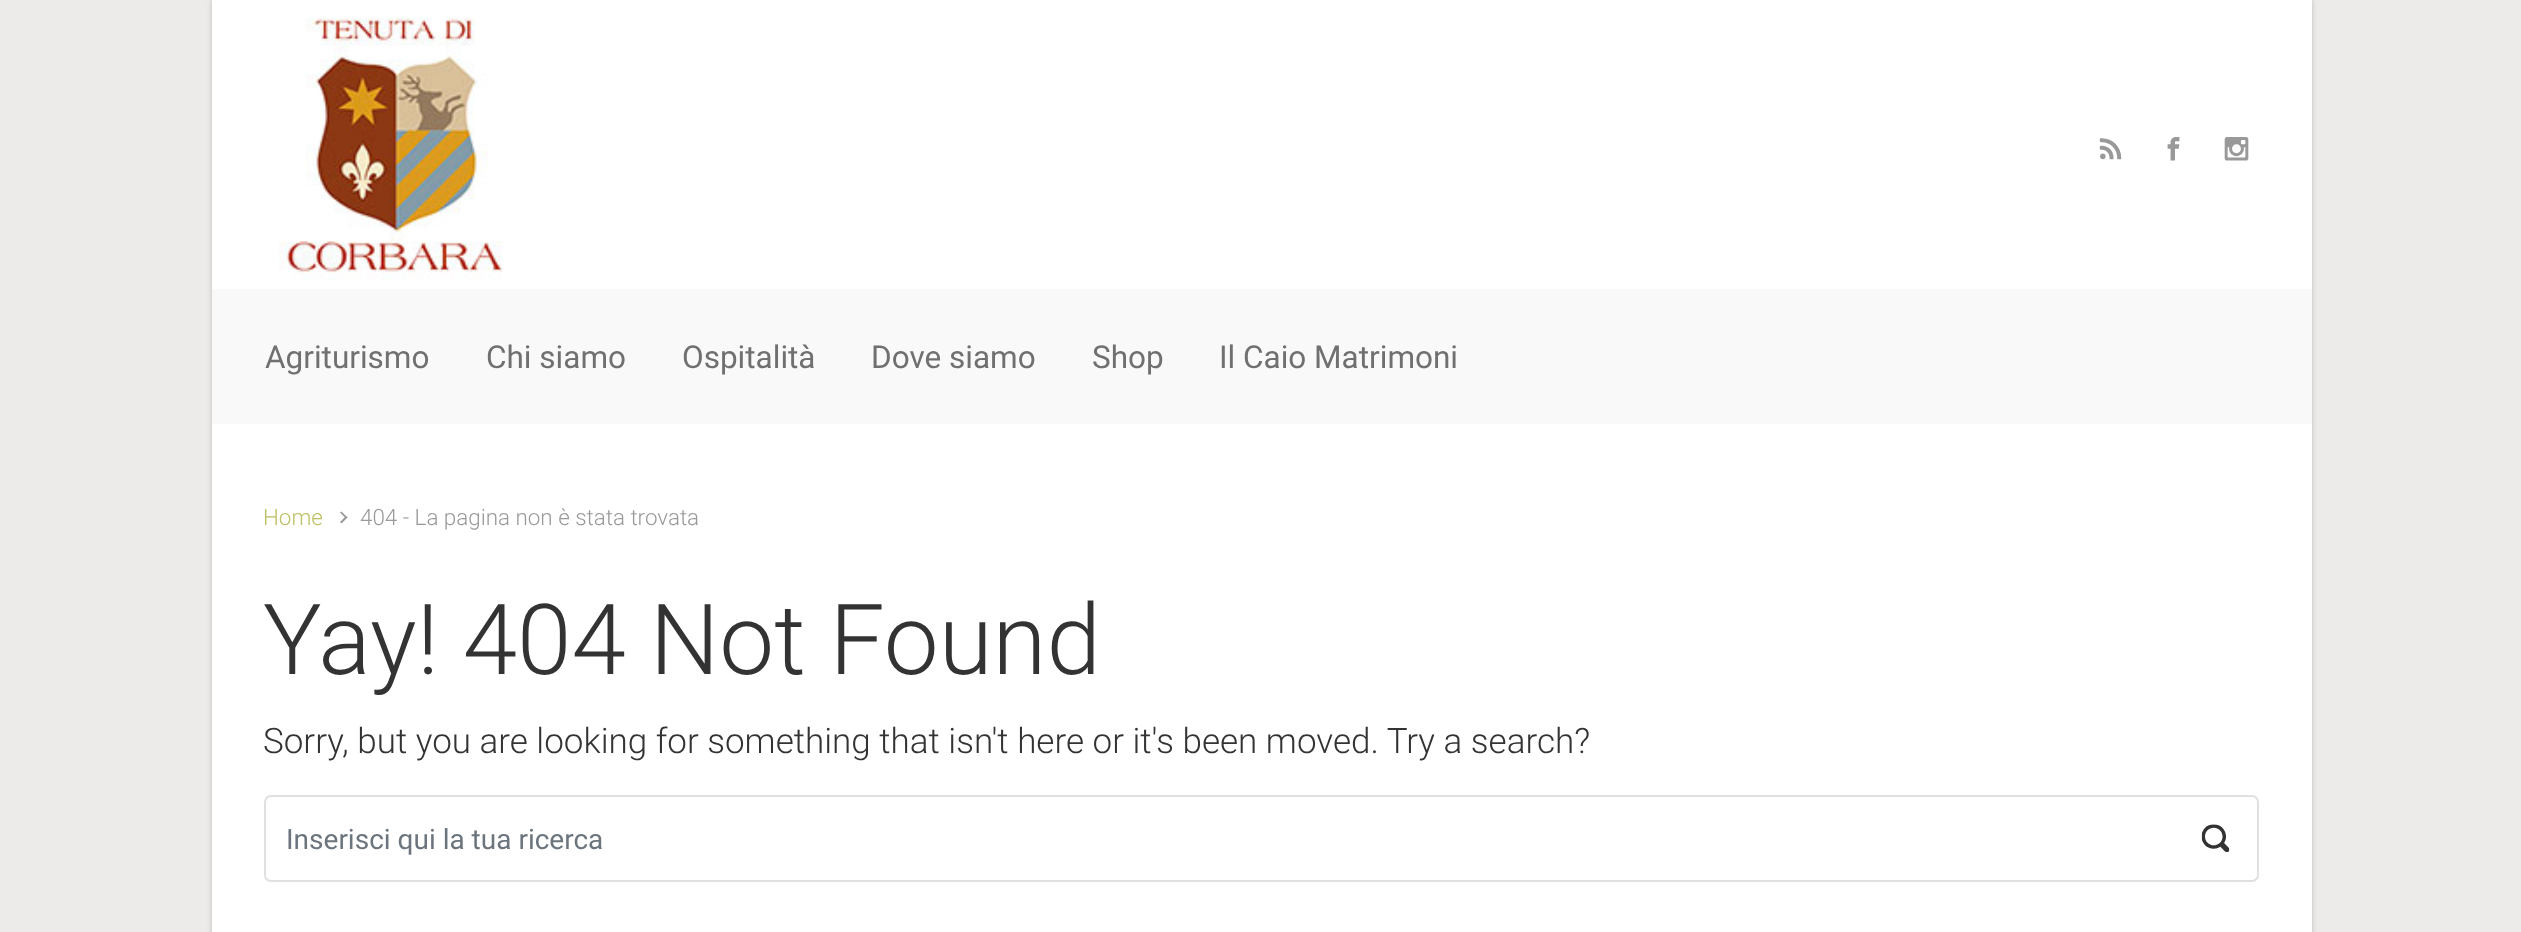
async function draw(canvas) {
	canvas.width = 2521;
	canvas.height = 932;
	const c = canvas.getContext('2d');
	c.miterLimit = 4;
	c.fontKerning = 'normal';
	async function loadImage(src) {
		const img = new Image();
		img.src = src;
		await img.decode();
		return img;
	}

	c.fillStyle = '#ecebe9';
	c.fillRect(0, 0, 2521, 932);
	c.fillStyle = '#00000033';
	c.filter = 'blur(2.5px)';
	c.beginPath();
	c.rect(212, 0, 2100, 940);
	c.fill();
	c.filter = 'none';
	c.fillStyle = '#f9f9f9';
	c.fillRect(212, 289, 2100, 135);
	c.fillStyle = '#fff';
	c.fillRect(212, 0, 2100, 289);
	c.drawImage(await loadImage('img1.png'), 278, 17, 225, 263);
	c.drawImage(await loadImage('img2.png'), 2099, 138, 23, 22);
	c.drawImage(await loadImage('img3.png'), 2167, 137, 13, 24);
	c.drawImage(await loadImage('img4.png'), 2224, 137, 25, 24);
	c.font = '31.5px Roboto';
	c.fillStyle = '#707070';
	for (const [text, x, y] of [
		['Agriturismo', 265, 368],
		['Chi siamo', 486, 368],
		['Ospitalità', 682, 368],
		['Dove siamo', 871, 368],
		['Shop', 1092, 368],
		['Il Caio Matrimoni', 1219, 368],
	]) {
		c.fillText(text, x, y);
	}
	c.fillStyle = '#fff';
	c.fillRect(212, 424, 2100, 508);
	c.font = '300 22.4px Roboto';
	c.fillStyle = '#bdbf63';
	c.fillText('Home', 263, 525);
	c.fillStyle = '#999';
	c.beginPath();
	c.moveTo(340, 512.5);
	c.lineTo(341.5, 511.5);
	c.lineTo(347.5, 517.5);
	c.lineTo(346, 518.5);
	c.closePath();
	c.fill();
	c.beginPath();
	c.moveTo(340, 522);
	c.lineTo(346, 516);
	c.lineTo(347.5, 517.5);
	c.lineTo(341.5, 523.5);
	c.closePath();
	c.fill();
	c.fillText('404 - La pagina non è stata trovata', 360, 525);
	c.font = '300 98px Roboto';
	c.fillStyle = '#333';
	c.fillText('Yay! 404 Not Found', 263, 674);
	c.font = '300 35px Roboto';
	c.fillText('Sorry, but you are looking for something that isn\'t here or it\'s been moved. Try a search?', 263, 753);
	c.beginPath();
	c.roundRect(265, 796, 1993, 85, 6);
	c.strokeStyle = '#e0e0e0';
	c.lineWidth = 2;
	c.stroke();
	c.font = '28px Roboto';
	c.fillStyle = '#6c757d';
	c.fillText('Inserisci qui la tua ricerca', 286, 849);
	c.drawImage(await loadImage('img5.png'), 2201, 824, 29, 28);
}

draw(document.querySelector('canvas'));
